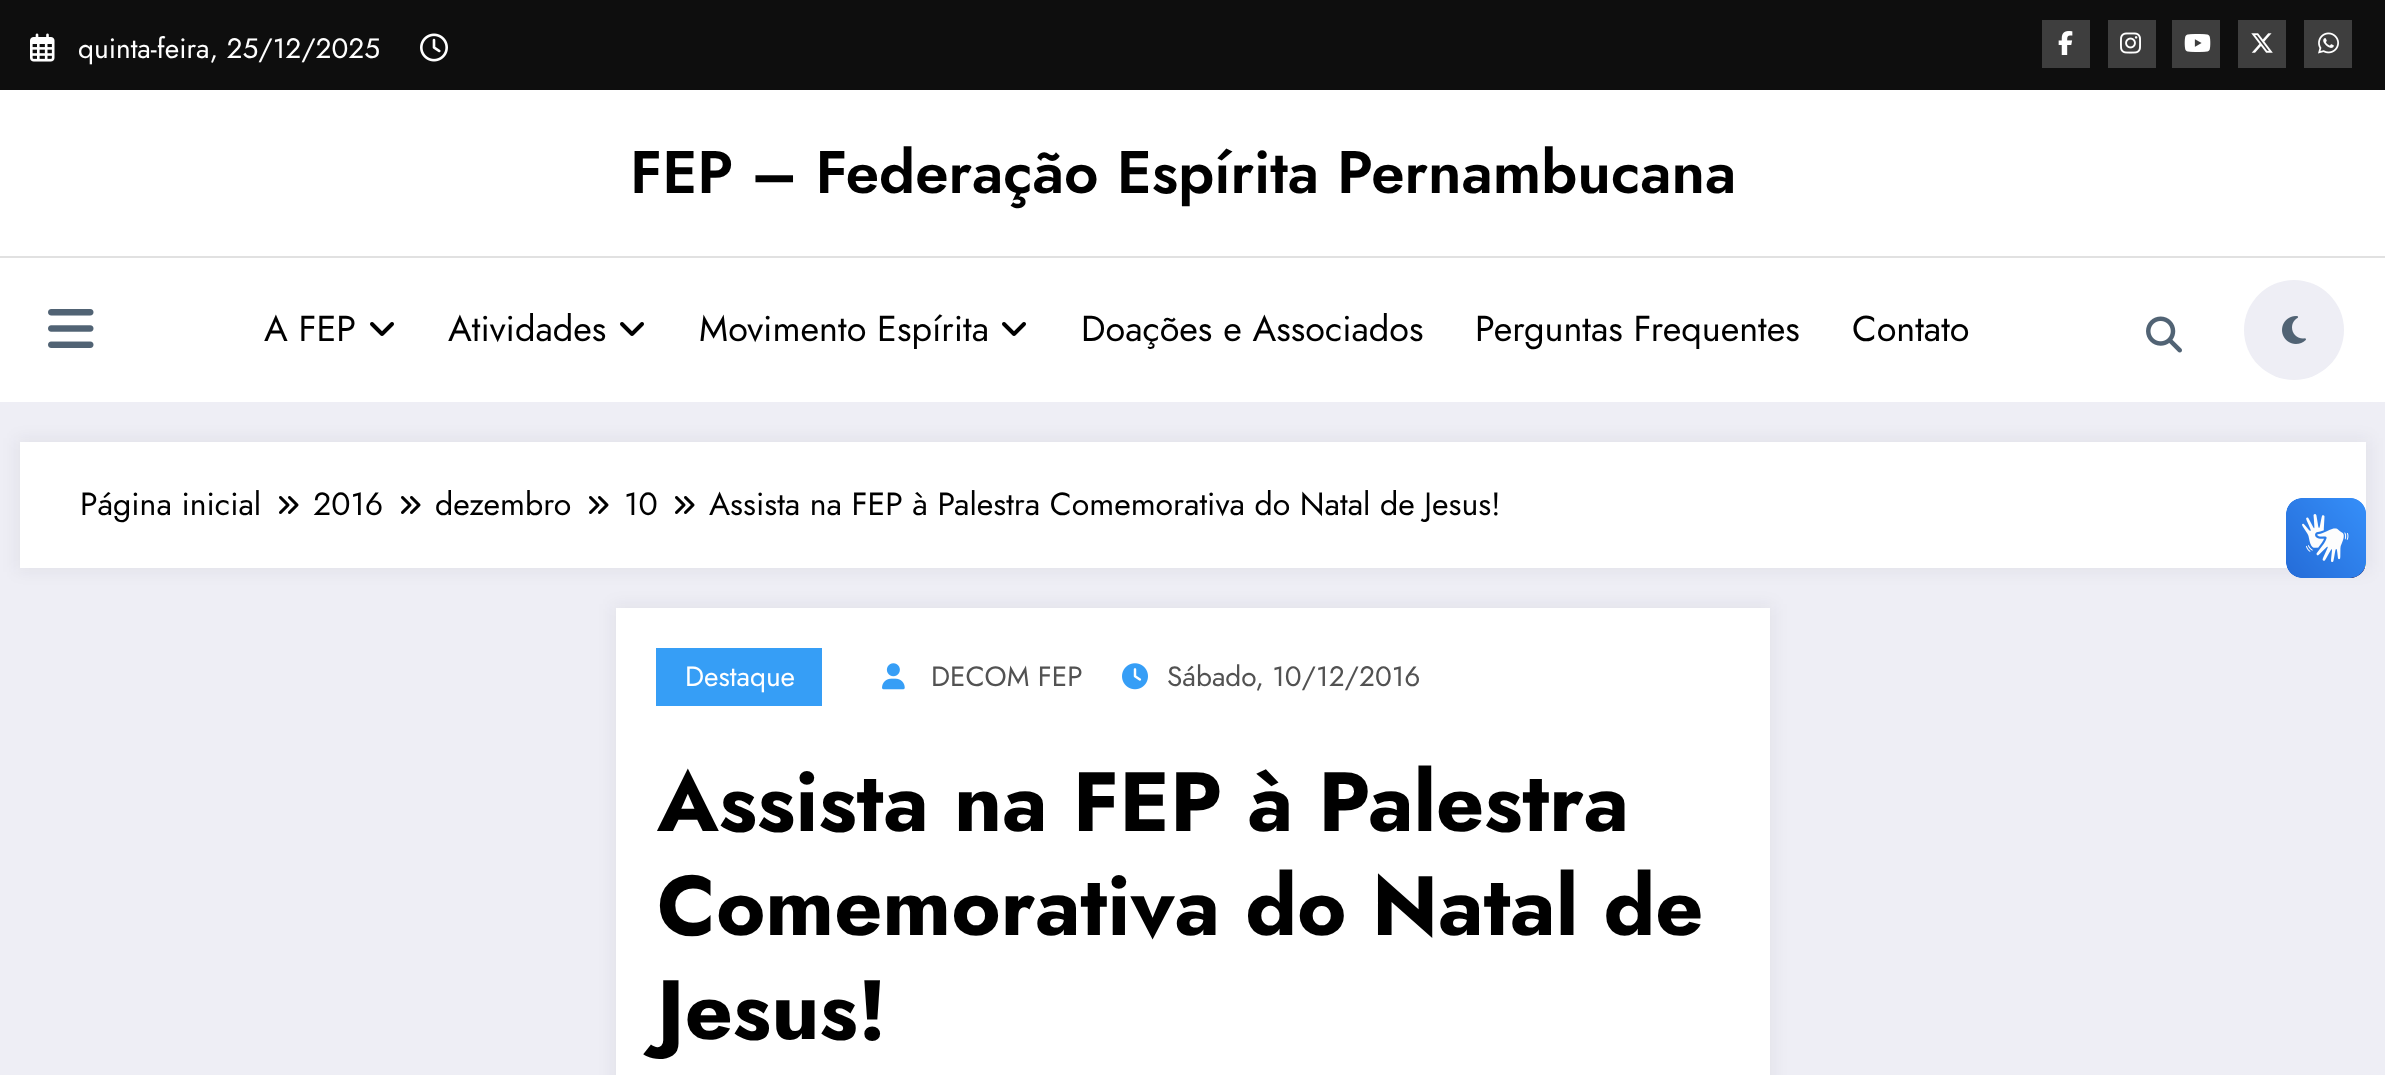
async function draw(canvas) {
	canvas.width = 2385;
	canvas.height = 1075;
	const c = canvas.getContext('2d');
	c.miterLimit = 4;
	c.fontKerning = 'normal';
	async function loadImage(src) {
		const img = new Image();
		img.src = src;
		await img.decode();
		return img;
	}

	c.fillStyle = '#eeeef5';
	c.fillRect(0, 0, 2385, 1075);
	c.fillStyle = '#0e0e0e';
	c.fillRect(0, 0, 2385, 90);
	c.drawImage(await loadImage('img1.png'), 30, 33, 25, 29);
	c.font = '28px Jost';
	c.fillStyle = '#fff';
	c.fillText('quinta-feira, 25/12/2025', 78, 58);
	c.drawImage(await loadImage('img2.png'), 420, 33, 28, 29);
	c.fillStyle = '#3e3e3e';
	c.fillRect(2042, 20, 48, 48);
	c.drawImage(await loadImage('img3.png'), 2058, 31, 15, 24);
	c.fillRect(2108, 20, 48, 48);
	c.drawImage(await loadImage('img4.png'), 2120, 32, 21, 22);
	c.fillRect(2172, 20, 48, 48);
	c.drawImage(await loadImage('img5.png'), 2184, 34, 27, 18);
	c.fillRect(2238, 20, 48, 48);
	c.drawImage(await loadImage('img6.png'), 2251, 33, 22, 20);
	c.fillRect(2304, 20, 48, 48);
	c.drawImage(await loadImage('img7.png'), 2318, 32, 21, 22);
	c.fillStyle = '#fff';
	c.fillRect(0, 90, 2385, 312);
	c.font = '600 60px Jost';
	c.fillStyle = '#000';
	c.fillText('FEP – Federação Espírita Pernambucana', 630, 193);
	c.fillStyle = '#e1e1e1';
	c.fillRect(0, 256, 2385, 2);
	c.drawImage(await loadImage('img8.png'), 48, 309, 46, 39);
	c.font = '36px Jost';
	c.fillStyle = '#000';
	c.fillText('A FEP', 264, 341);
	c.drawImage(await loadImage('img9.png'), 370, 322, 24, 14);
	c.fillText('Atividades', 448, 341);
	c.drawImage(await loadImage('img9.png'), 620, 322, 24, 14);
	c.fillText('Movimento Espírita', 699, 341);
	c.drawImage(await loadImage('img9.png'), 1002, 322, 24, 14);
	for (const [text, x, y] of [
		['Doações e Associados', 1081, 341],
		['Perguntas Frequentes', 1475, 341],
		['Contato', 1852, 341],
	]) {
		c.fillText(text, x, y);
	}
	c.drawImage(await loadImage('img10.png'), 2146, 316, 36, 37);
	c.fillStyle = '#eeeef5';
	c.beginPath();
	c.arc(2294, 330, 50, 0, 2 * Math.PI);
	c.fill();
	c.drawImage(await loadImage('img11.png'), 2282, 316, 24, 28);
	c.fillStyle = '#1717230d';
	c.filter = 'blur(8px)';
	c.beginPath();
	c.rect(16, 438, 2354, 134);
	c.fill();
	c.filter = 'none';
	c.fillStyle = '#fff';
	c.fillRect(20, 442, 2346, 126);
	c.font = '32px Jost';
	c.fillStyle = '#000';
	c.fillText('Página inicial', 80, 515);
	c.drawImage(await loadImage('img12.png'), 279, 496, 20, 18);
	c.fillText('2016', 313, 515);
	c.drawImage(await loadImage('img12.png'), 401, 496, 20, 18);
	c.fillText('dezembro', 435, 515);
	c.drawImage(await loadImage('img12.png'), 589, 496, 20, 18);
	c.fillText('10', 624, 515);
	c.drawImage(await loadImage('img12.png'), 675, 496, 20, 18);
	c.fillText('Assista na FEP à Palestra Comemorativa do Natal de Jesus!', 709, 515);
	c.fillStyle = '#1717230d';
	c.filter = 'blur(8px)';
	c.beginPath();
	c.rect(612, 604, 1162, 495);
	c.fill();
	c.filter = 'none';
	c.fillStyle = '#fff';
	c.fillRect(616, 608, 1154, 467);
	c.fillStyle = '#369ef6';
	c.fillRect(656, 648, 166, 58);
	c.font = '28px Jost';
	c.fillStyle = '#fff';
	c.fillText('Destaque', 685, 686);
	c.drawImage(await loadImage('img13.png'), 882, 663, 23, 27);
	c.fillStyle = '#525252';
	c.fillText('DECOM FEP', 931, 686);
	c.drawImage(await loadImage('img14.png'), 1122, 663, 26, 27);
	c.fillText('Sábado, 10/12/2016', 1167, 686);
	c.font = 'bold 84px Jost';
	c.fillStyle = '#000';
	for (const [text, x, y] of [
		['Assista na FEP à Palestra', 657, 831],
		['Comemorativa do Natal de', 657, 935],
		['Jesus!', 657, 1039],
	]) {
		c.fillText(text, x, y);
	}
	c.drawImage(await loadImage('img15.png'), 2286, 498, 80, 80);
	c.drawImage(await loadImage('img16.png'), 2286, 498, 80, 80);
}

draw(document.querySelector('canvas'));
